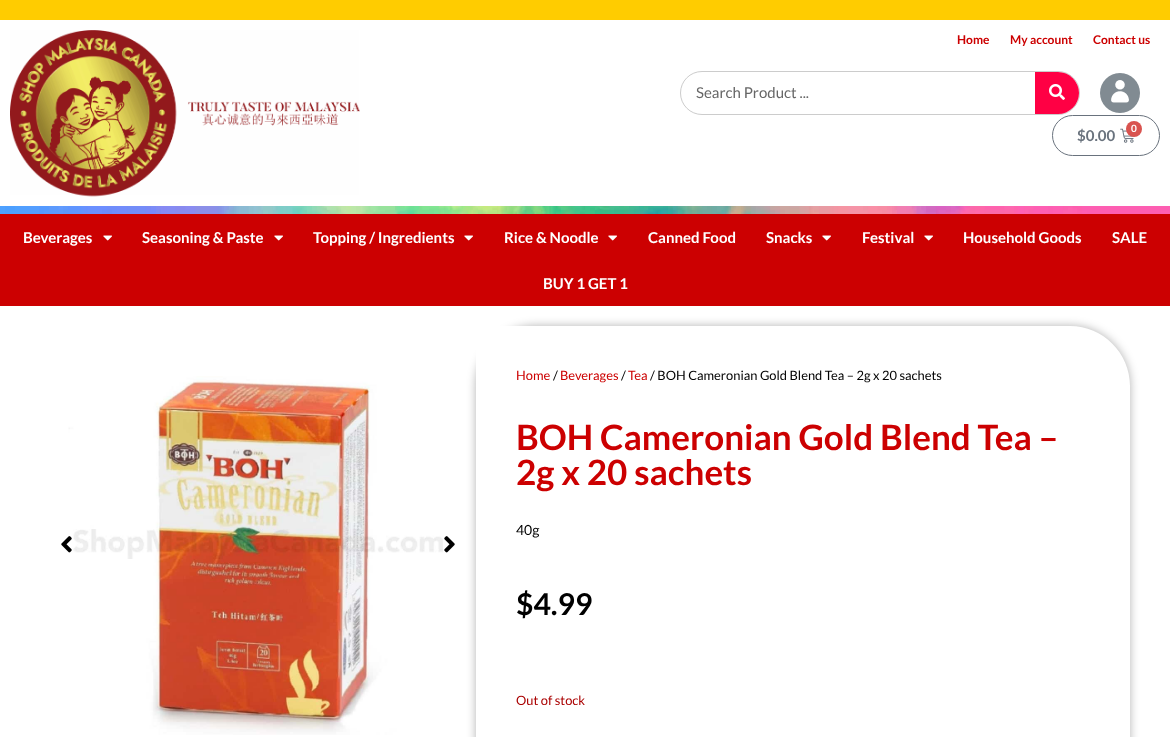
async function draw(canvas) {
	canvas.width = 1170;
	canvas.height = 737;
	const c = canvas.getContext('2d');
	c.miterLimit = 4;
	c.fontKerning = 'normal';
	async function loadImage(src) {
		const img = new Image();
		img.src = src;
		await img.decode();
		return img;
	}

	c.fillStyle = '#fff';
	c.fillRect(0, 0, 1170, 737);
	c.fillStyle = '#fc0';
	c.fillRect(0, 0, 1170, 20);
	c.drawImage(await loadImage('img1.png'), 10, 30, 350, 167);
	c.font = 'bold 12px Lato';
	c.fillStyle = '#cc0001';
	for (const [text, x, y] of [
		['Home', 957, 44],
		['My account', 1010, 44],
		['Contact us', 1093, 44],
	]) {
		c.fillText(text, x, y);
	}
	c.beginPath();
	c.roundRect(680.5, 71.5, 399, 43, 21.5);
	c.strokeStyle = '#ccc';
	c.stroke();
	c.font = '15px Lato';
	c.fillStyle = '#666';
	c.fillText('Search Product ...', 696, 98);
	c.fillStyle = '#f04';
	c.beginPath();
	c.roundRect(1035, 72, 44, 42, [0, 21, 21, 0]);
	c.fill();
	c.drawImage(await loadImage('img2.png'), 1049, 84, 16, 16);
	c.drawImage(await loadImage('img3.png'), 1100, 73, 40, 40);
	c.beginPath();
	c.roundRect(1052.5, 115.5, 107, 40, 20);
	c.strokeStyle = '#69727d';
	c.stroke();
	c.font = 'bold 15px Lato';
	c.fillStyle = '#69727d';
	c.fillText('$0.00', 1077, 141);
	c.drawImage(await loadImage('img4.png'), 1120, 128, 14, 15);
	c.fillStyle = '#d9534f';
	c.beginPath();
	c.arc(1134, 129, 8, 0, 2 * Math.PI);
	c.fill();
	c.font = 'bold 10px Lato';
	c.fillStyle = '#fff';
	c.fillText('0', 1131, 132);
	c.drawImage(await loadImage('img5.png'), 0, 206, 1170, 8);
	c.fillStyle = '#cc0001';
	c.fillRect(0, 214, 1170, 92);
	c.font = 'bold 15px Lato';
	c.fillStyle = '#fff';
	c.fillText('Beverages', 23, 243);
	c.drawImage(await loadImage('img6.png'), 103, 235, 9, 6);
	c.fillText('Seasoning & Paste', 142, 243);
	c.drawImage(await loadImage('img6.png'), 274, 235, 9, 6);
	c.fillText('Topping / Ingredients', 313, 243);
	c.drawImage(await loadImage('img6.png'), 464, 235, 9, 6);
	c.fillText('Rice & Noodle', 504, 243);
	c.drawImage(await loadImage('img6.png'), 608, 235, 9, 6);
	c.fillText('Canned Food', 648, 243);
	c.fillText('Snacks', 766, 243);
	c.drawImage(await loadImage('img6.png'), 822, 235, 9, 6);
	c.fillText('Festival', 862, 243);
	c.drawImage(await loadImage('img6.png'), 924, 235, 9, 6);
	for (const [text, x, y] of [
		['Household Goods', 963, 243],
		['SALE', 1112, 243],
		['BUY 1 GET 1', 543, 289],
	]) {
		c.fillText(text, x, y);
	}
	c.drawImage(await loadImage('img8.png'), 68, 376, 375, 359);
	c.drawImage(await loadImage('img7.png'), 61, 536, 11, 17);
	c.drawImage(await loadImage('img9.png'), 444, 536, 11, 17);
	c.save();
	c.beginPath();
	c.moveTo(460, 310);
	c.lineTo(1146, 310);
	c.lineTo(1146, 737);
	c.lineTo(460, 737);
	c.closePath();
	c.moveTo(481, 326);
	c.lineTo(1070, 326);
	c.bezierCurveTo(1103, 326, 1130, 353, 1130, 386);
	c.lineTo(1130, 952);
	c.bezierCurveTo(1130, 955, 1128, 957, 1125, 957);
	c.lineTo(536, 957);
	c.bezierCurveTo(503, 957, 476, 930, 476, 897);
	c.lineTo(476, 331);
	c.bezierCurveTo(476, 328, 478, 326, 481, 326);
	c.closePath();
	c.clip('evenodd');
	c.fillStyle = '#0000004d';
	c.filter = 'blur(5px)';
	c.beginPath();
	c.roundRect(476, 326, 654, 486, 60);
	c.fill();
	c.filter = 'none';
	c.restore();
	c.font = '12.9px Lato';
	c.fillStyle = '#cc0001';
	c.fillText('Home', 516, 380);
	c.fillStyle = '#000';
	c.fillText('/', 553, 380);
	c.fillStyle = '#cc0001';
	c.fillText('Beverages', 560, 380);
	c.fillStyle = '#000';
	c.fillText('/', 621, 380);
	c.fillStyle = '#cc0001';
	c.fillText('Tea', 628, 380);
	c.fillStyle = '#000';
	c.fillText('/ BOH Cameronian Gold Blend Tea – 2g x 20 sachets', 650, 380);
	c.font = 'bold 35px Lato';
	c.fillStyle = '#cc0001';
	c.fillText('BOH Cameronian Gold Blend Tea –', 516, 450);
	c.fillText('2g x 20 sachets', 516, 485);
	c.font = '14px Lato';
	c.fillStyle = '#000';
	c.fillText('40g', 516, 535);
	c.font = 'bold 30px Lato';
	c.fillText('$4.99', 516, 615);
	c.font = '12.9px Lato';
	c.fillStyle = '#a00';
	c.fillText('Out of stock', 516, 705);
}

draw(document.querySelector('canvas'));
